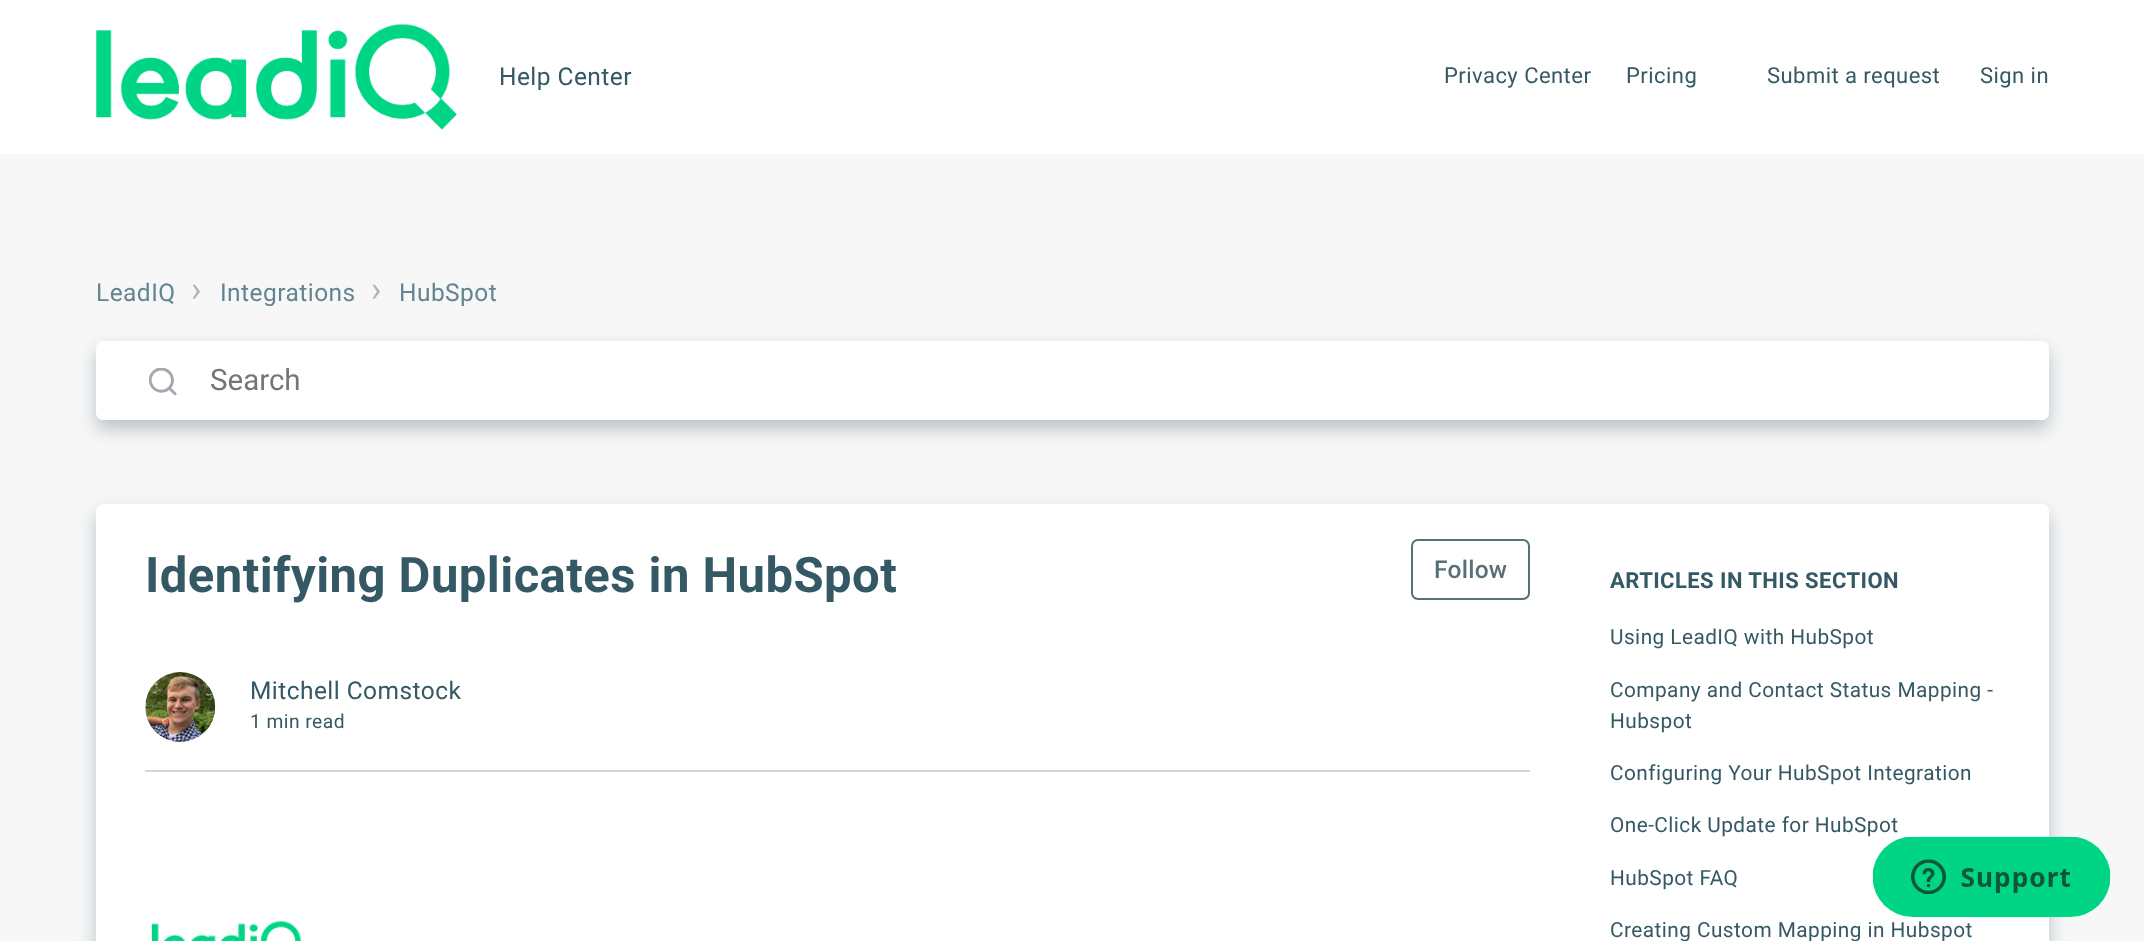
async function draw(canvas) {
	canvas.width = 2144;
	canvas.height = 941;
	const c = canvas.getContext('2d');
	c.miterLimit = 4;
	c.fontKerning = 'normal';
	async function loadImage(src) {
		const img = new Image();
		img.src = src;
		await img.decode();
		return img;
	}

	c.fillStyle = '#f7f7f8';
	c.fillRect(0, 0, 2144, 941);
	c.fillStyle = '#fff';
	c.fillRect(0, 0, 2144, 154);
	c.drawImage(await loadImage('img1.png'), 96, 24, 361, 106);
	c.letterSpacing = '0.45px';
	c.font = '24.5px Roboto';
	c.fillStyle = '#355964';
	c.fillText('Help Center', 499, 85);
	c.font = '22px Roboto';
	for (const [text, x, y] of [
		['Privacy Center', 1444, 83],
		['Pricing', 1626, 83],
		['Submit a request', 1767, 83],
		['Sign in', 1980, 83],
	]) {
		c.fillText(text, x, y);
	}
	c.font = '24.5px Roboto';
	c.fillStyle = '#63858f';
	c.fillText('LeadIQ', 96, 301);
	c.font = '35px Roboto';
	c.fillStyle = '#a9b8bd';
	c.fillText('›', 191, 301);
	c.font = '24.5px Roboto';
	c.fillStyle = '#63858f';
	c.fillText('Integrations', 220, 301);
	c.font = '35px Roboto';
	c.fillStyle = '#a9b8bd';
	c.fillText('›', 371, 301);
	c.font = '24.5px Roboto';
	c.fillStyle = '#63858f';
	c.fillText('HubSpot', 399, 301);
	c.fillStyle = '#b8c2c4';
	c.filter = 'blur(9px)';
	c.beginPath();
	c.roundRect(96, 350, 1953, 79, 7);
	c.fill();
	c.filter = 'none';
	c.fillStyle = '#fff';
	c.beginPath();
	c.roundRect(96, 341, 1953, 79, 7);
	c.fill();
	c.drawImage(await loadImage('img2.png'), 149, 368, 28, 28);
	c.letterSpacing = '0px';
	c.font = '29.5px Roboto';
	c.fillStyle = '#757575';
	c.fillText('Search', 210, 390);
	c.fillStyle = '#b8c2c4';
	c.filter = 'blur(9px)';
	c.beginPath();
	c.roundRect(96, 513, 1953, 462, 7);
	c.fill();
	c.filter = 'none';
	c.fillStyle = '#fff';
	c.beginPath();
	c.roundRect(96, 504, 1953, 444, 7);
	c.fill();
	c.letterSpacing = '0.45px';
	c.font = 'bold 49px Roboto';
	c.fillStyle = '#355964';
	c.fillText('Identifying Duplicates in HubSpot', 145, 592);
	c.beginPath();
	c.roundRect(1412, 540, 117, 59, 6);
	c.strokeStyle = '#576f76';
	c.lineWidth = 2;
	c.stroke();
	c.letterSpacing = '0.25px';
	c.font = '500 24.5px Roboto';
	c.fillStyle = '#576f76';
	c.fillText('Follow', 1434, 578);
	c.fillStyle = '#d7d6dc';
	c.fillRect(145, 770, 1385, 2);
	c.drawImage(await loadImage('img3.png'), 145, 672, 71, 70);
	c.letterSpacing = '0.45px';
	c.font = '24.5px Roboto';
	c.fillStyle = '#355964';
	c.fillText('Mitchell Comstock', 250, 699);
	c.font = '19.25px Roboto';
	c.fillText('1 min read', 250, 728);
	c.drawImage(await loadImage('img4.png'), 151, 921, 150, 20);
	c.font = 'bold 22px Roboto';
	c.fillText('ARTICLES IN THIS SECTION', 1610, 588);
	c.font = '20.8px Roboto';
	for (const [text, x, y] of [
		['Using LeadIQ with HubSpot', 1610, 644],
		['Company and Contact Status Mapping -', 1610, 697],
		['Hubspot', 1610, 728],
		['Configuring Your HubSpot Integration', 1610, 780],
		['One-Click Update for HubSpot', 1610, 832],
		['HubSpot FAQ', 1610, 885],
		['Creating Custom Mapping in Hubspot', 1610, 937],
	]) {
		c.fillText(text, x, y);
	}
	c.drawImage(await loadImage('img5.png'), 1872, 836, 239, 81);
}

draw(document.querySelector('canvas'));
